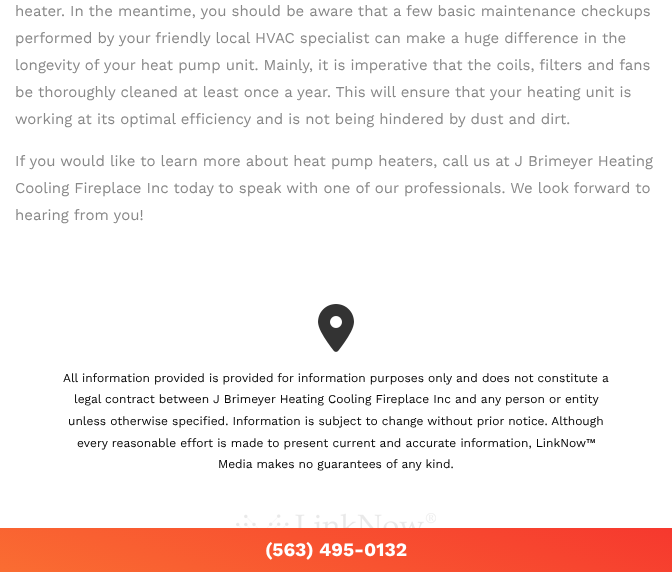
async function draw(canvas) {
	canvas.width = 672;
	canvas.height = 572;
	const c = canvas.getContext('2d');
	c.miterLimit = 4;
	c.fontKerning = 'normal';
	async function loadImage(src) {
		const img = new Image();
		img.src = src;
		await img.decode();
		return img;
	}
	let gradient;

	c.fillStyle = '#fff';
	c.fillRect(0, 0, 672, 572);
	c.font = '15px Work Sans';
	c.fillStyle = '#888';
	for (const [text, x, y] of [
		['heater. In the meantime, you should be aware that a few basic maintenance checkups', 15, 16],
		['performed by your friendly local HVAC specialist can make a huge difference in the', 15, 43],
		['longevity of your heat pump unit. Mainly, it is imperative that the coils, filters and fans', 15, 70],
		['be thoroughly cleaned at least once a year. This will ensure that your heating unit is', 15, 97],
		['working at its optimal efficiency and is not being hindered by dust and dirt.', 15, 124],
		['If you would like to learn more about heat pump heaters, call us at J Brimeyer Heating', 15, 166],
		['Cooling Fireplace Inc today to speak with one of our professionals. We look forward to', 15, 193],
		['hearing from you!', 15, 220],
	]) {
		c.fillText(text, x, y);
	}
	c.drawImage(await loadImage('img1.png'), 318, 304, 36, 48);
	c.font = '12px Work Sans';
	c.fillStyle = '#000';
	for (const [text, x, y] of [
		['All information provided is provided for information purposes only and does not constitute a', 63, 382],
		['legal contract between J Brimeyer Heating Cooling Fireplace Inc and any person or entity', 74, 403],
		['unless otherwise specified. Information is subject to change without prior notice. Although', 68, 425],
		['every reasonable effort is made to present current and accurate information, LinkNow™', 77, 447],
		['Media makes no guarantees of any kind.', 218, 468],
	]) {
		c.fillText(text, x, y);
	}
	c.drawImage(await loadImage('img2.png'), 236, 513, 200, 15);
	gradient = c.createLinearGradient(378, 427, 294, 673);
	gradient.addColorStop(0, '#f6382e');
	gradient.addColorStop(1, '#fa6d32');
	c.fillStyle = gradient;
	c.fillRect(0, 528, 672, 44);
	c.font = 'bold 19px Work Sans';
	c.fillStyle = '#fff';
	c.fillText('(563) 495-0132', 265, 556);
}

draw(document.querySelector('canvas'));
